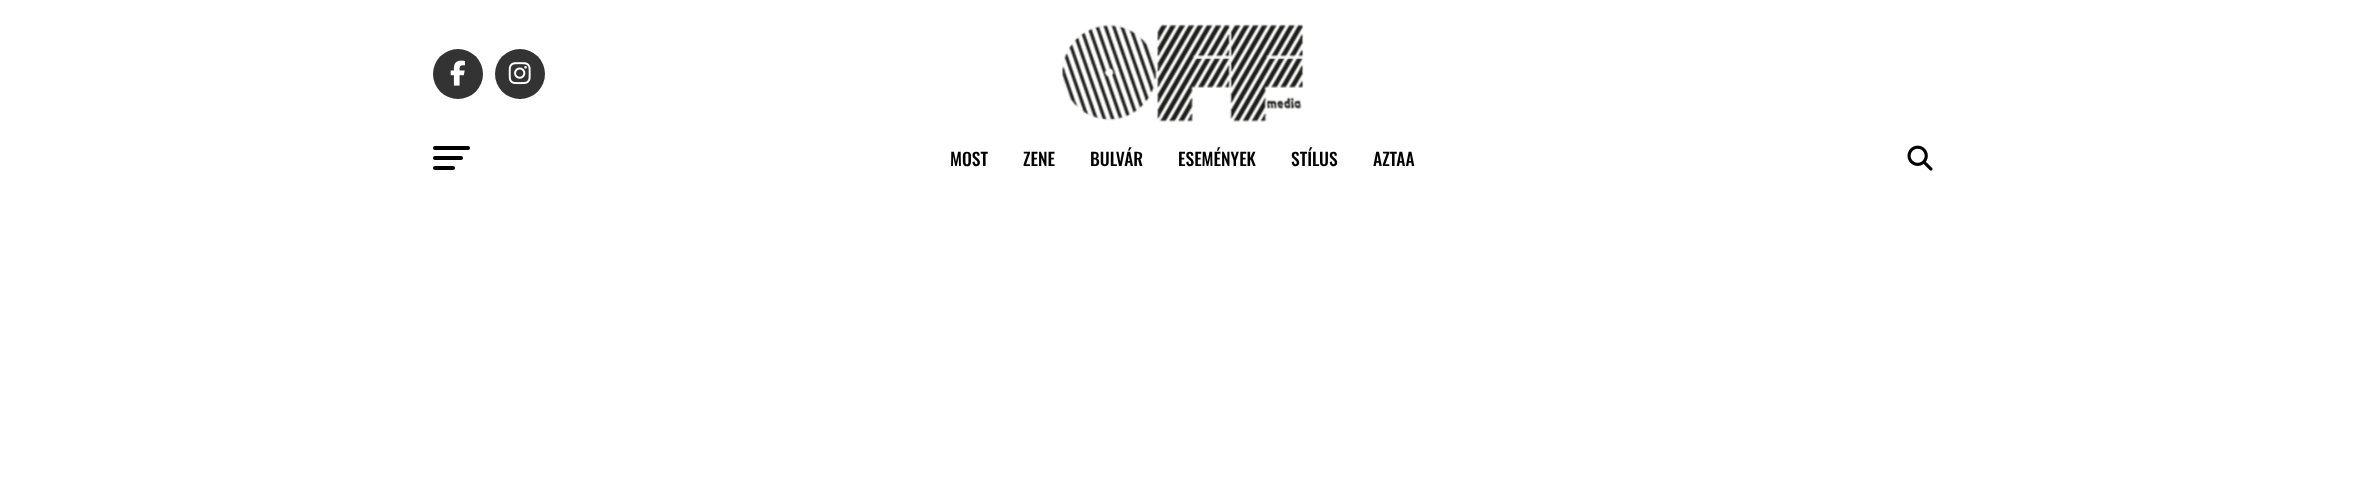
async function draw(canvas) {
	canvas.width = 2364;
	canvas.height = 491;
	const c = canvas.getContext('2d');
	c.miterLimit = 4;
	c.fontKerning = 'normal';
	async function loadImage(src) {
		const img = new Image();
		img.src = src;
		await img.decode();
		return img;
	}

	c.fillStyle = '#fff';
	c.fillRect(0, 0, 2364, 491);
	c.fillStyle = '#333';
	c.beginPath();
	c.arc(458, 74, 25, 0, 2 * Math.PI);
	c.fill();
	c.drawImage(await loadImage('img1.png'), 450, 60, 15, 26);
	c.beginPath();
	c.arc(520, 74, 25, 0, 2 * Math.PI);
	c.fill();
	c.drawImage(await loadImage('img2.png'), 508, 62, 23, 23);
	c.drawImage(await loadImage('img3.png'), 1061, 24, 243, 98);
	c.fillStyle = '#000';
	c.beginPath();
	c.roundRect(433, 146, 37, 4, 2);
	c.fill();
	c.beginPath();
	c.roundRect(433, 156, 30, 4, 2);
	c.fill();
	c.beginPath();
	c.roundRect(433, 166, 22, 4, 2);
	c.fill();
	c.font = '500 17.5px Oswald';
	for (const [text, x, y] of [
		['MOST', 950, 166],
		['ZENE', 1023, 166],
		['BULVÁR', 1090, 166],
		['ESEMÉNYEK', 1178, 166],
		['STÍLUS', 1291, 166],
		['AZTAA', 1373, 166],
	]) {
		c.fillText(text, x, y);
	}
	c.drawImage(await loadImage('img4.png'), 1907, 145, 26, 26);
}

draw(document.querySelector('canvas'));
